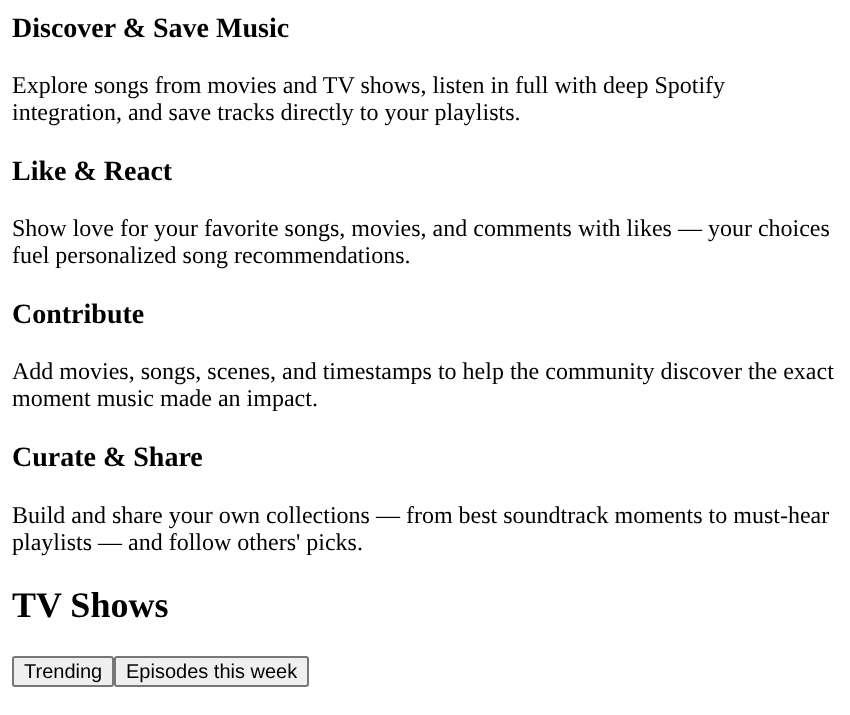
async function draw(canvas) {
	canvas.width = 850;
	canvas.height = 715;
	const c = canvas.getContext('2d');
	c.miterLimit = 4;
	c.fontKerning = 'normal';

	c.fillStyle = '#fff';
	c.fillRect(0, 0, 850, 715);
	c.font = 'bold 28px Liberation Serif';
	c.fillStyle = '#000';
	c.fillText('Discover & Save Music', 12, 37);
	c.font = '24px Liberation Serif';
	c.fillText('Explore songs from movies and TV shows, listen in full with deep Spotify', 12, 93);
	c.fillText('integration, and save tracks directly to your playlists.', 12, 120);
	c.font = 'bold 28px Liberation Serif';
	c.fillText('Like & React', 12, 180);
	c.font = '24px Liberation Serif';
	c.fillText('Show love for your favorite songs, movies, and comments with likes — your choices', 12, 236);
	c.fillText('fuel personalized song recommendations.', 12, 263);
	c.font = 'bold 28px Liberation Serif';
	c.fillText('Contribute', 12, 323);
	c.font = '24px Liberation Serif';
	c.fillText('Add movies, songs, scenes, and timestamps to help the community discover the exact', 12, 379);
	c.fillText('moment music made an impact.', 12, 406);
	c.font = 'bold 28px Liberation Serif';
	c.fillText('Curate & Share', 12, 466);
	c.font = '24px Liberation Serif';
	c.fillText('Build and share your own collections — from best soundtrack moments to must-hear', 12, 523);
	c.fillText('playlists — and follow others\' picks.', 12, 550);
	c.font = 'bold 36px Liberation Serif';
	c.fillText('TV Shows', 12, 617);
	c.fillStyle = '#efefef';
	c.beginPath();
	c.roundRect(13, 657, 100, 29, 2);
	c.fill();
	c.strokeStyle = '#767676';
	c.lineWidth = 2;
	c.stroke();
	c.font = '20px Liberation Sans';
	c.fillStyle = '#000';
	c.fillText('Trending', 24, 678);
	c.fillStyle = '#efefef';
	c.beginPath();
	c.roundRect(115, 657, 193, 29, 2);
	c.fill();
	c.stroke();
	c.fillStyle = '#000';
	c.fillText('Episodes this week', 126, 678);
}

draw(document.querySelector('canvas'));
